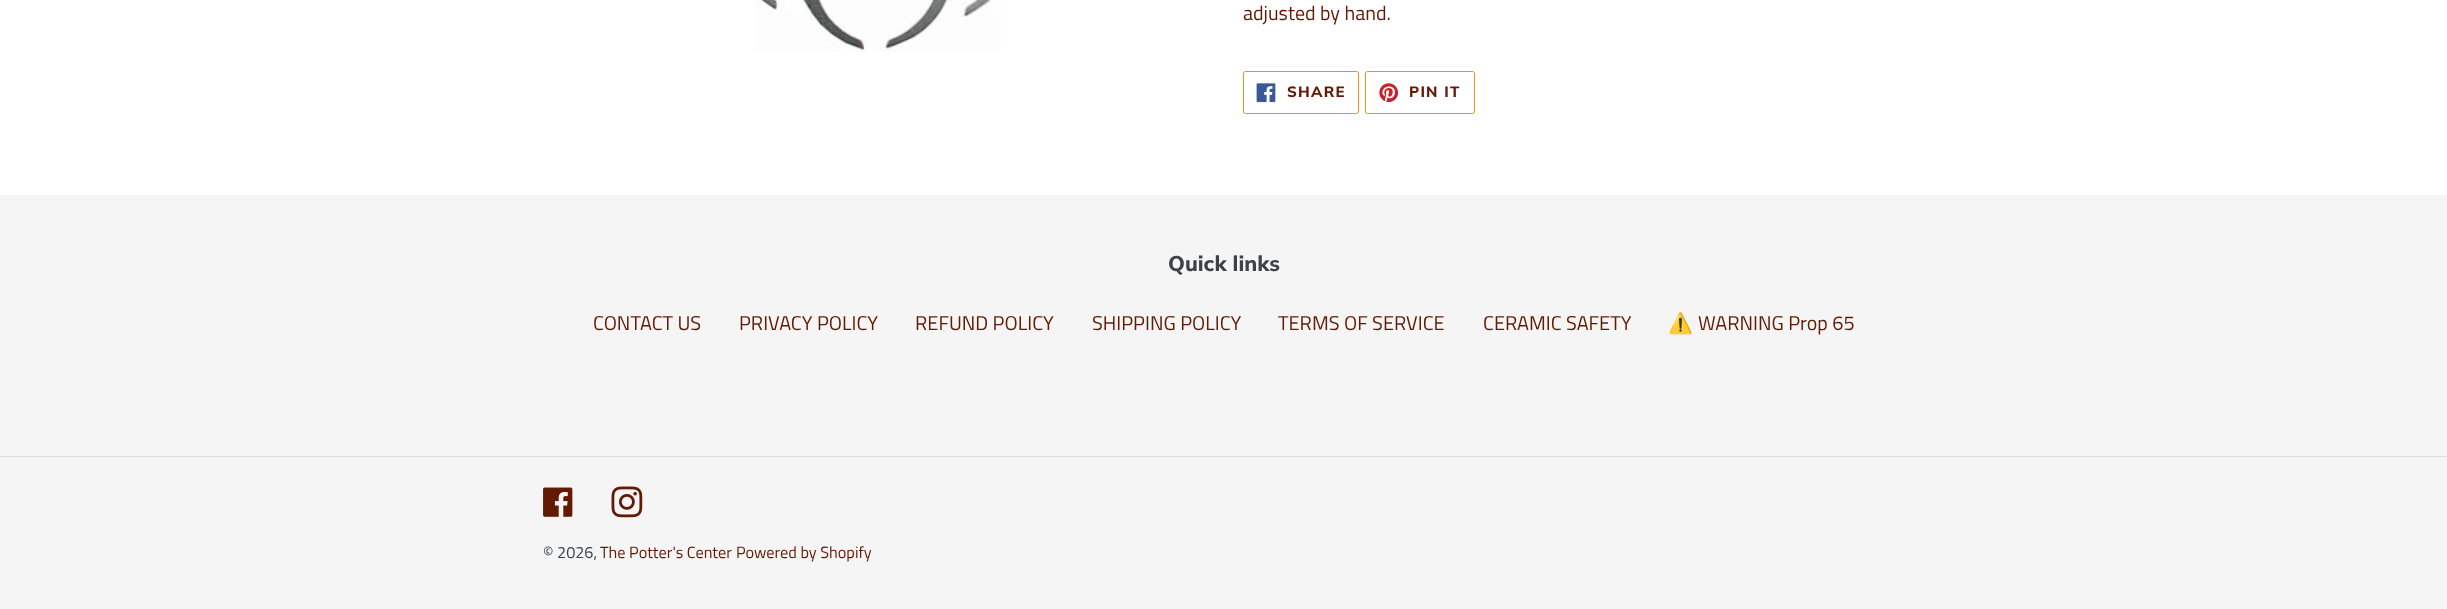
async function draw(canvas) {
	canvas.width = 2447;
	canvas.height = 609;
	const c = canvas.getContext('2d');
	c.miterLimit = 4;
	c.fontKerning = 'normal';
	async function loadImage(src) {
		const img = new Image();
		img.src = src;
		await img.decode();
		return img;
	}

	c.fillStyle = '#fff';
	c.fillRect(0, 0, 2447, 609);
	c.drawImage(await loadImage('img1.png'), 756, 0, 245, 52);
	c.font = '20px Titillium Web';
	c.fillStyle = '#631904';
	c.fillText('adjusted by hand.', 1243, 20);
	c.beginPath();
	c.roundRect(1243.5, 71.5, 115, 42, 2);
	c.strokeStyle = '#e59512';
	c.stroke();
	c.drawImage(await loadImage('img2.png'), 1256, 83, 20, 20);
	c.letterSpacing = '1.25px';
	c.font = '800 15px Muli';
	c.fillText('SHARE', 1287, 97);
	c.beginPath();
	c.roundRect(1365.5, 71.5, 109, 42, 2);
	c.stroke();
	c.drawImage(await loadImage('img3.png'), 1379, 83, 20, 20);
	c.fillText('PIN IT', 1409, 97);
	c.fillStyle = '#f5f5f5';
	c.fillRect(0, 195, 2447, 414);
	c.letterSpacing = '0px';
	c.font = '800 21.25px Muli';
	c.fillStyle = '#3d4246';
	c.fillText('Quick links', 1168, 271);
	c.font = '20px Titillium Web';
	c.fillStyle = '#631904';
	for (const [text, x, y] of [
		['CONTACT US', 593, 330],
		['PRIVACY POLICY', 739, 330],
		['REFUND POLICY', 915, 330],
		['SHIPPING POLICY', 1092, 330],
		['TERMS OF SERVICE', 1278, 330],
		['CERAMIC SAFETY', 1483, 330],
	]) {
		c.fillText(text, x, y);
	}
	c.font = '20px Noto Color Emoji';
	c.fillText('⚠️', 1668, 330);
	c.font = '20px Titillium Web';
	c.fillText('WARNING Prop 65', 1698, 330);
	c.fillStyle = '#dcdcdc';
	c.fillRect(0, 456, 2447, 1);
	c.drawImage(await loadImage('img4.png'), 543, 487, 30, 30);
	c.drawImage(await loadImage('img5.png'), 611, 486, 32, 32);
	c.font = '16.25px Titillium Web';
	c.fillStyle = '#3d4246';
	c.fillText('© 2026,', 543, 558);
	c.fillStyle = '#631904';
	c.fillText('The Potter\'s Center', 600, 558);
	c.fillText('Powered by Shopify', 736, 558);
}

draw(document.querySelector('canvas'));
